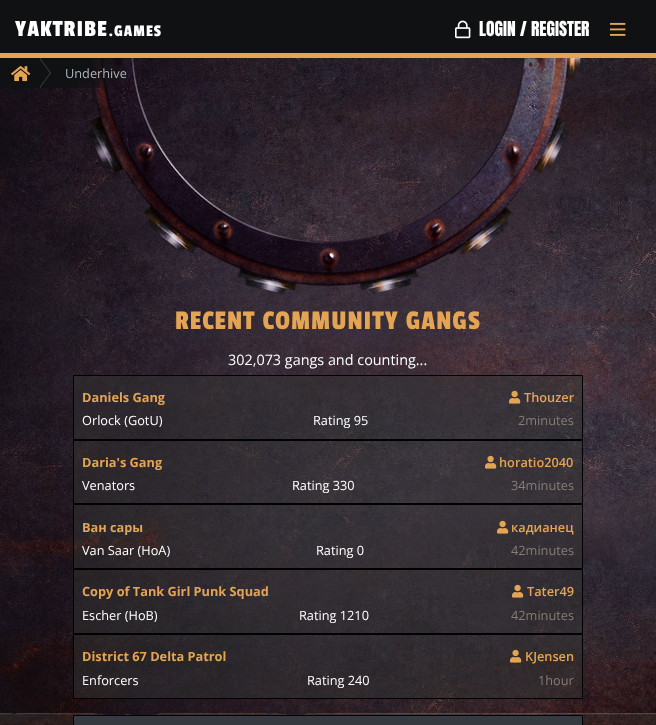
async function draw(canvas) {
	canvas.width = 656;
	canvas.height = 725;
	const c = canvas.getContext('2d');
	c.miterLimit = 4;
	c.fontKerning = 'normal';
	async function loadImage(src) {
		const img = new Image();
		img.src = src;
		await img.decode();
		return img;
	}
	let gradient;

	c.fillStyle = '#fff';
	c.fillRect(0, 0, 656, 725);
	c.fillStyle = '#101113';
	c.fillRect(0, 0, 656, 53);
	c.fillStyle = '#e3a453';
	c.fillRect(0, 53, 656, 5);
	c.letterSpacing = '1px';
	c.font = '24px Passion One';
	c.fillStyle = '#fff';
	c.fillText('YAKTRIBE', 15, 36);
	c.font = '17px Passion One';
	c.fillText('.GAMES', 108, 36);
	c.drawImage(await loadImage('img1.png'), 455, 20, 16, 19);
	c.letterSpacing = '0px';
	c.font = '17.5px Anton';
	c.fillText('LOGIN / REGISTER', 479, 36);
	c.drawImage(await loadImage('img2.png'), 610, 22, 16, 14);
	c.drawImage(await loadImage('img4.png'), 0, 58, 656, 667);
	c.drawImage(await loadImage('img5.png'), 75, 58, 507, 236);
	gradient = c.createLinearGradient(46, 48, 131, 98);
	gradient.addColorStop(0.4, '#101113');
	gradient.addColorStop(0.9, '#10111300');
	c.fillStyle = gradient;
	c.beginPath();
	c.roundRect(40, 58, 97, 30, [0, 4, 4, 0]);
	c.fill();
	c.fillStyle = '#101113';
	c.beginPath();
	c.roundRect(0, 58, 41, 30, [4, 0, 0, 4]);
	c.fill();
	c.fillStyle = '#3f434b';
	c.beginPath();
	c.moveTo(40, 88);
	c.lineTo(40, 58);
	c.lineTo(51, 73);
	c.closePath();
	c.fill();
	c.fillStyle = '#101113';
	c.beginPath();
	c.moveTo(39, 88);
	c.lineTo(39, 58);
	c.lineTo(50, 73);
	c.closePath();
	c.fill();
	c.drawImage(await loadImage('img3.png'), 11, 66, 20, 16);
	c.font = '12.75px Open Sans';
	c.fillStyle = '#acb4b9';
	c.fillText('Underhive', 65, 78);
	c.letterSpacing = '1px';
	c.font = '28px Passion One';
	c.fillStyle = '#e3a453';
	c.fillText('RECENT COMMUNITY GANGS', 175, 329);
	c.letterSpacing = '0px';
	c.font = '14.4px Open Sans';
	c.fillStyle = '#fff';
	c.fillText('302,073 gangs and counting...', 228, 365);
	c.fillStyle = '#32323280';
	c.beginPath();
	c.rect(73.5, 375.5, 509, 64);
	c.fill();
	c.strokeStyle = '#000';
	c.stroke();
	c.font = 'bold 12.75px Open Sans';
	c.fillStyle = '#e3a453';
	c.fillText('Daniels Gang', 82, 402);
	c.drawImage(await loadImage('img6.png'), 509, 390, 12, 14);
	c.font = '600 12.75px Open Sans';
	c.fillText('Thouzer', 524, 402);
	c.font = '12.75px Open Sans';
	c.fillStyle = '#fff';
	c.fillText('Orlock (GotU)', 82, 425);
	c.fillText('Rating 95', 313, 425);
	c.fillStyle = '#867d77';
	c.fillText('2minutes', 518, 425);
	c.fillStyle = '#32323280';
	c.beginPath();
	c.rect(73.5, 440.5, 509, 63);
	c.fill();
	c.stroke();
	c.font = 'bold 12.75px Open Sans';
	c.fillStyle = '#e3a453';
	c.fillText('Daria\'s Gang', 82, 467);
	c.drawImage(await loadImage('img7.png'), 485, 455, 12, 14);
	c.font = '600 12.75px Open Sans';
	c.fillText('horatio2040', 499, 467);
	c.font = '12.75px Open Sans';
	c.fillStyle = '#fff';
	c.fillText('Venators', 82, 490);
	c.fillText('Rating 330', 292, 490);
	c.fillStyle = '#867d77';
	c.fillText('34minutes', 511, 490);
	c.fillStyle = '#32323280';
	c.beginPath();
	c.rect(73.5, 504.5, 509, 64);
	c.fill();
	c.stroke();
	c.font = 'bold 12.75px Open Sans';
	c.fillStyle = '#e3a453';
	c.fillText('Ван сары', 82, 532);
	c.drawImage(await loadImage('img8.png'), 497, 520, 12, 14);
	c.font = '600 12.75px Open Sans';
	c.fillText('кадианец', 511, 532);
	c.font = '12.75px Open Sans';
	c.fillStyle = '#fff';
	c.fillText('Van Saar (HoA)', 82, 555);
	c.fillText('Rating 0', 316, 555);
	c.fillStyle = '#867d77';
	c.fillText('42minutes', 511, 555);
	c.fillStyle = '#32323280';
	c.beginPath();
	c.rect(73.5, 569.5, 509, 64);
	c.fill();
	c.stroke();
	c.font = 'bold 12.75px Open Sans';
	c.fillStyle = '#e3a453';
	c.fillText('Copy of Tank Girl Punk Squad', 82, 596);
	c.drawImage(await loadImage('img9.png'), 512, 584, 12, 14);
	c.font = '600 12.75px Open Sans';
	c.fillText('Tater49', 527, 596);
	c.font = '12.75px Open Sans';
	c.fillStyle = '#fff';
	c.fillText('Escher (HoB)', 82, 620);
	c.fillText('Rating 1210', 299, 620);
	c.fillStyle = '#867d77';
	c.fillText('42minutes', 511, 620);
	c.fillStyle = '#32323280';
	c.beginPath();
	c.rect(73.5, 634.5, 509, 64);
	c.fill();
	c.stroke();
	c.font = 'bold 12.75px Open Sans';
	c.fillStyle = '#e3a453';
	c.fillText('District 67 Delta Patrol', 82, 661);
	c.drawImage(await loadImage('img10.png'), 510, 649, 12, 14);
	c.font = '600 12.75px Open Sans';
	c.fillText('KJensen', 525, 661);
	c.font = '12.75px Open Sans';
	c.fillStyle = '#fff';
	c.fillText('Enforcers', 82, 685);
	c.fillText('Rating 240', 307, 685);
	c.fillStyle = '#867d77';
	c.fillText('1hour', 538, 685);
	c.fillStyle = '#343a40';
	c.beginPath();
	c.rect(73.5, 715.5, 509, 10);
	c.fill();
	c.stroke();
}

draw(document.querySelector('canvas'));
